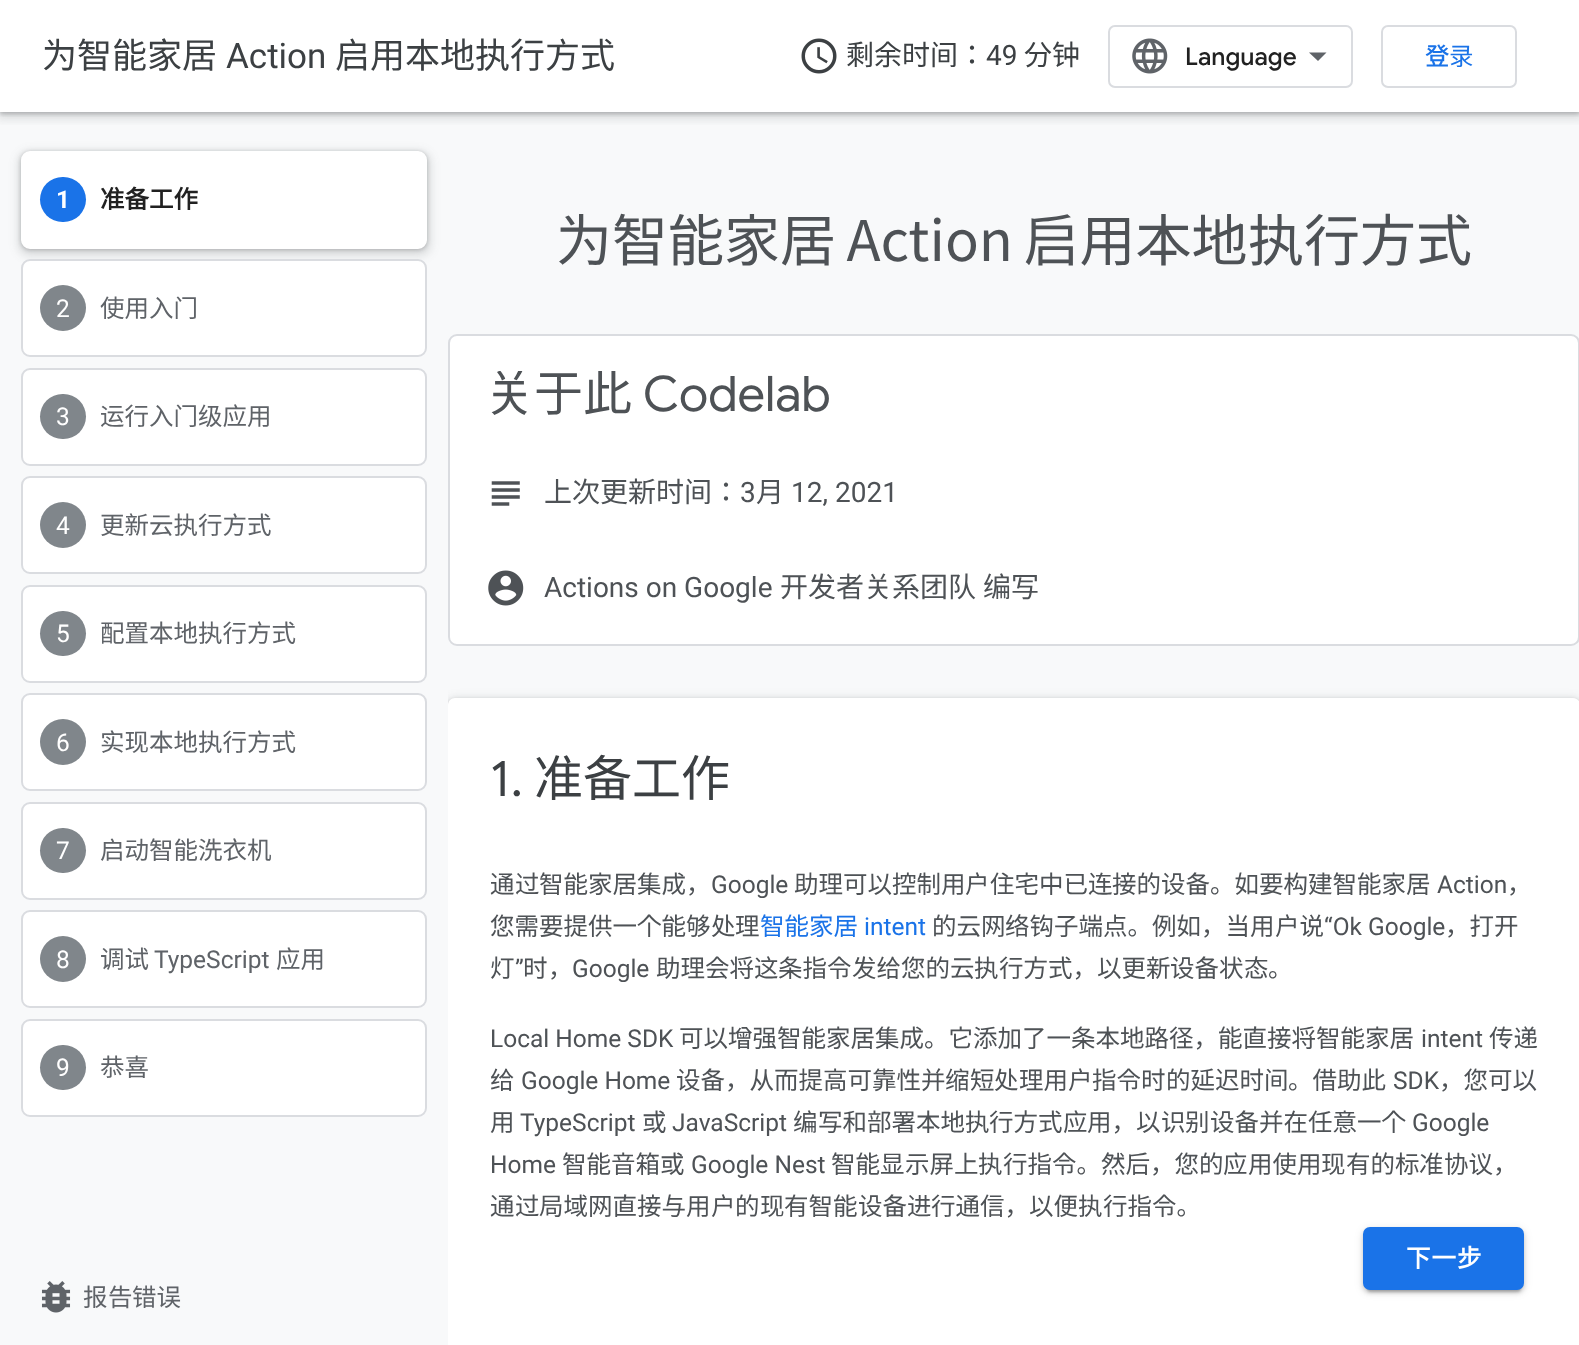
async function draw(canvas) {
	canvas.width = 1579;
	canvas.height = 1345;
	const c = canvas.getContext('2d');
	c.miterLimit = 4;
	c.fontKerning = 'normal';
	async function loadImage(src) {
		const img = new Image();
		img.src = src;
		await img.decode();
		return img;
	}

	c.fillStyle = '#fff';
	c.fillRect(0, 0, 1579, 1345);
	c.fillStyle = '#f8f9fa';
	c.fillRect(448, 112, 1131, 593);
	c.fillRect(0, 1248, 448, 97);
	c.save();
	c.beginPath();
	c.rect(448, 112, 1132, 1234);
	c.clip();
	c.fillStyle = '#3c404326';
	c.filter = 'blur(5px)';
	c.beginPath();
	c.roundRect(445, 698, 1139, 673, 11);
	c.fill();
	c.filter = 'none';
	c.fillStyle = '#3c40434d';
	c.filter = 'blur(2px)';
	c.beginPath();
	c.roundRect(448, 700, 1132, 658, 7);
	c.fill();
	c.filter = 'none';
	c.restore();
	c.fillRect(0, 112, 448, 1136);
	c.save();
	c.beginPath();
	c.rect(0, 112, 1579, 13);
	c.clip();
	c.fillStyle = '#3c404326';
	c.filter = 'blur(5px)';
	c.beginPath();
	c.rect(-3, 0, 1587, 119);
	c.fill();
	c.filter = 'none';
	c.restore();
	c.save();
	c.beginPath();
	c.rect(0, 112, 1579, 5);
	c.clip();
	c.fillStyle = '#3c40434d';
	c.filter = 'blur(2px)';
	c.beginPath();
	c.rect(0, 2, 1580, 112);
	c.fill();
	c.filter = 'none';
	c.restore();
	c.font = '35px Noto Sans CJK SC';
	c.fillStyle = '#3c4043';
	c.fillText('为智能家居', 42, 68);
	c.font = '35px Roboto';
	c.fillText('Action', 226, 68);
	c.font = '35px Noto Sans CJK SC';
	c.fillText('启用本地执行方式', 335, 68);
	c.drawImage(await loadImage('img1.png'), 801, 38, 36, 36);
	c.font = '28px Noto Sans JP';
	c.fillText('剩余', 846, 65);
	c.font = '28px Noto Sans CJK SC';
	c.fillText('时间', 902, 65);
	c.font = '28px Noto Sans JP';
	c.fillText('：', 958, 65);
	c.font = '28px Roboto';
	c.fillText('49', 986, 65);
	c.font = '28px Noto Sans JP';
	c.fillText('分', 1024, 65);
	c.font = '28px Noto Sans CJK SC';
	c.fillText('钟', 1052, 65);
	c.beginPath();
	c.roundRect(1109, 26, 243, 61, 6);
	c.strokeStyle = '#dadce0';
	c.lineWidth = 2;
	c.stroke();
	c.drawImage(await loadImage('img2.png'), 1132, 38, 36, 36);
	c.font = '500 24.5px Google Sans';
	c.fillStyle = '#212121';
	c.fillText('Language', 1185, 65);
	c.fillStyle = '#5f6368';
	c.beginPath();
	c.moveTo(1318, 61);
	c.lineTo(1309, 52.5);
	c.lineTo(1326.5, 52.5);
	c.closePath();
	c.fill();
	c.beginPath();
	c.roundRect(1382, 26, 134, 61, 6);
	c.stroke();
	c.font = '500 24.5px Noto Sans JP';
	c.fillStyle = '#1a73e8';
	c.fillText('登', 1425, 65);
	c.font = '24.5px Noto Sans CJK SC';
	c.fillText('录', 1449, 65);
	c.fillStyle = '#3c404326';
	c.filter = 'blur(5px)';
	c.beginPath();
	c.roundRect(18, 151, 413, 105, 12);
	c.fill();
	c.filter = 'none';
	c.fillStyle = '#3c40434d';
	c.filter = 'blur(2px)';
	c.beginPath();
	c.roundRect(21, 152, 406, 98, 9);
	c.fill();
	c.filter = 'none';
	c.fillStyle = '#fff';
	c.beginPath();
	c.roundRect(22, 152, 404, 96, 8);
	c.fill();
	c.strokeStyle = '#fff';
	c.stroke();
	c.fillStyle = '#1a73e8';
	c.beginPath();
	c.roundRect(40, 177, 46, 45, 22.5);
	c.fill();
	c.font = 'bold 24.5px Roboto';
	c.fillStyle = '#fff';
	c.fillText('1', 56, 208);
	c.font = 'bold 24.5px Noto Sans CJK SC';
	c.fillStyle = '#212121';
	c.fillText('准备工作', 100, 208);
	c.fillStyle = '#fff';
	c.beginPath();
	c.roundRect(22, 260, 404, 96, 8);
	c.fill();
	c.strokeStyle = '#dadce0';
	c.stroke();
	c.fillStyle = '#80868b';
	c.beginPath();
	c.arc(63, 308, 23, 0, 2 * Math.PI);
	c.fill();
	c.font = '24.5px Roboto';
	c.fillStyle = '#fff';
	c.fillText('2', 56, 317);
	c.font = '24.5px Noto Sans CJK SC';
	c.fillStyle = '#5f6368';
	c.fillText('使用入门', 100, 317);
	c.fillStyle = '#fff';
	c.beginPath();
	c.roundRect(22, 369, 404, 96, 8);
	c.fill();
	c.stroke();
	c.fillStyle = '#80868b';
	c.beginPath();
	c.roundRect(40, 394, 46, 45, 22.5);
	c.fill();
	c.font = '24.5px Roboto';
	c.fillStyle = '#fff';
	c.fillText('3', 56, 425);
	c.font = '24.5px Noto Sans CJK SC';
	c.fillStyle = '#5f6368';
	c.fillText('运行入门级应用', 100, 425);
	c.fillStyle = '#fff';
	c.beginPath();
	c.roundRect(22, 477, 404, 96, 8);
	c.fill();
	c.stroke();
	c.fillStyle = '#80868b';
	c.beginPath();
	c.arc(63, 525, 23, 0, 2 * Math.PI);
	c.fill();
	c.font = '24.5px Roboto';
	c.fillStyle = '#fff';
	c.fillText('4', 56, 534);
	c.font = '24.5px Noto Sans CJK SC';
	c.fillStyle = '#5f6368';
	c.fillText('更新云执行方式', 100, 534);
	c.fillStyle = '#fff';
	c.beginPath();
	c.roundRect(22, 586, 404, 96, 8);
	c.fill();
	c.stroke();
	c.fillStyle = '#80868b';
	c.beginPath();
	c.roundRect(40, 611, 46, 45, 22.5);
	c.fill();
	c.font = '24.5px Roboto';
	c.fillStyle = '#fff';
	c.fillText('5', 56, 642);
	c.font = '24.5px Noto Sans CJK SC';
	c.fillStyle = '#5f6368';
	c.fillText('配置本地执行方式', 100, 642);
	c.fillStyle = '#fff';
	c.beginPath();
	c.roundRect(22, 694, 404, 96, 8);
	c.fill();
	c.stroke();
	c.fillStyle = '#80868b';
	c.beginPath();
	c.arc(63, 742, 23, 0, 2 * Math.PI);
	c.fill();
	c.font = '24.5px Roboto';
	c.fillStyle = '#fff';
	c.fillText('6', 56, 751);
	c.font = '24.5px Noto Sans CJK SC';
	c.fillStyle = '#5f6368';
	c.fillText('实现本地执行方式', 100, 751);
	c.fillStyle = '#fff';
	c.beginPath();
	c.roundRect(22, 803, 404, 96, 8);
	c.fill();
	c.stroke();
	c.fillStyle = '#80868b';
	c.beginPath();
	c.roundRect(40, 828, 46, 45, 22.5);
	c.fill();
	c.font = '24.5px Roboto';
	c.fillStyle = '#fff';
	c.fillText('7', 56, 859);
	c.font = '24.5px Noto Sans CJK SC';
	c.fillStyle = '#5f6368';
	c.fillText('启动智能洗衣机', 100, 859);
	c.fillStyle = '#fff';
	c.beginPath();
	c.roundRect(22, 911, 404, 96, 8);
	c.fill();
	c.stroke();
	c.fillStyle = '#80868b';
	c.beginPath();
	c.arc(63, 959, 23, 0, 2 * Math.PI);
	c.fill();
	c.font = '24.5px Roboto';
	c.fillStyle = '#fff';
	c.fillText('8', 56, 968);
	c.font = '24.5px Noto Sans CJK SC';
	c.fillStyle = '#5f6368';
	c.fillText('调试', 100, 968);
	c.font = '24.5px Roboto';
	c.fillText('TypeScript', 154, 968);
	c.font = '24.5px Noto Sans CJK SC';
	c.fillText('应用', 276, 968);
	c.fillStyle = '#fff';
	c.beginPath();
	c.roundRect(22, 1020, 404, 96, 8);
	c.fill();
	c.stroke();
	c.fillStyle = '#80868b';
	c.beginPath();
	c.roundRect(40, 1045, 46, 45, 22.5);
	c.fill();
	c.font = '24.5px Roboto';
	c.fillStyle = '#fff';
	c.fillText('9', 56, 1076);
	c.font = '24.5px Noto Sans CJK SC';
	c.fillStyle = '#5f6368';
	c.fillText('恭喜', 100, 1076);
	c.font = '56px Noto Sans CJK SC';
	c.fillStyle = '#4e5256';
	c.fillText('为', 556, 261);
	c.wordSpacing = '-2px';
	c.font = '56px Noto Sans JP';
	c.fillText('智能家居 Action 启用本地', 612, 261);
	c.wordSpacing = '0px';
	c.font = '56px Noto Sans CJK SC';
	c.fillText('执', 1248, 261);
	c.font = '56px Noto Sans JP';
	c.fillText('行方式', 1304, 261);
	c.fillStyle = '#fff';
	c.beginPath();
	c.roundRect(449, 335, 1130, 310, 8);
	c.fill();
	c.stroke();
	c.save();
	c.beginPath();
	c.rect(485, 371, 1059, 49);
	c.clip();
	c.font = '49px Noto Sans JP';
	c.fillStyle = '#4e5256';
	c.fillText('关于此', 485, 411);
	c.restore();
	c.font = '49px Google Sans';
	c.fillStyle = '#4e5256';
	c.fillText('Codelab', 643, 411);
	c.drawImage(await loadImage('img3.png'), 491, 481, 29, 25);
	c.font = '28px Noto Sans JP';
	c.fillText('上次更新', 544, 502);
	c.font = '28px Noto Sans CJK SC';
	c.fillText('时间', 656, 502);
	c.font = '28px Noto Sans JP';
	c.fillText('：', 712, 502);
	c.font = '28px Roboto';
	c.fillText('3', 740, 502);
	c.font = '28px Noto Sans JP';
	c.fillText('月', 756, 502);
	c.font = '28px Roboto';
	c.fillText('12, 2021', 791, 502);
	c.drawImage(await loadImage('img4.png'), 488, 570, 36, 36);
	c.fillText('Actions on Google', 544, 597);
	c.font = '28px Noto Sans JP';
	c.fillText('开', 780, 597);
	c.font = '28px Noto Sans CJK SC';
	c.fillText('发', 808, 597);
	c.font = '28px Noto Sans JP';
	c.fillText('者关系', 836, 597);
	c.font = '28px Noto Sans CJK SC';
	c.fillText('团队', 920, 597);
	c.fillText('编', 983, 597);
	c.font = '28px Noto Sans JP';
	c.fillText('写', 1011, 597);
	c.fillStyle = '#fff';
	c.beginPath();
	c.moveTo(455, 698);
	c.lineTo(1573, 698);
	c.bezierCurveTo(1577, 698, 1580, 701, 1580, 705);
	c.lineTo(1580, 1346);
	c.lineTo(448, 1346);
	c.lineTo(448, 705);
	c.bezierCurveTo(448, 701, 451, 698, 455, 698);
	c.closePath();
	c.fill();
	c.font = '49px Google Sans';
	c.fillStyle = '#3c4043';
	c.fillText('1.', 490, 796);
	c.font = '49px Noto Sans CJK SC';
	c.fillText('准备工作', 534, 796);
	c.font = '24.5px Noto Sans JP';
	c.fillStyle = '#4e5256';
	c.fillText('通', 490, 893);
	c.font = '24.5px Noto Sans CJK SC';
	c.fillText('过', 515, 893);
	c.font = '24.5px Noto Sans JP';
	c.fillText('智能家居集成，', 539, 893);
	c.font = '24.5px Roboto';
	c.fillText('Google', 711, 893);
	c.font = '24.5px Noto Sans JP';
	c.fillText('助理可以控制用', 794, 893);
	c.font = '24.5px Noto Sans CJK SC';
	c.fillText('户', 965, 893);
	c.font = '24.5px Noto Sans JP';
	c.fillText('住宅中已', 990, 893);
	c.font = '24.5px Noto Sans CJK SC';
	c.fillText('连', 1088, 893);
	c.font = '24.5px Noto Sans JP';
	c.fillText('接的', 1112, 893);
	c.font = '24.5px Noto Sans CJK SC';
	c.fillText('设备', 1161, 893);
	c.font = '24.5px Noto Sans JP';
	c.fillText('。如要构建智能家居', 1210, 893);
	c.font = '24.5px Roboto';
	c.fillText('Action', 1437, 893);
	c.font = '24.5px Noto Sans JP';
	c.fillText('，', 1507, 893);
	c.fillText('您需要提供一个能够', 490, 935);
	c.font = '24.5px Noto Sans CJK SC';
	c.fillText('处', 711, 935);
	c.font = '24.5px Noto Sans JP';
	c.fillText('理', 735, 935);
	c.fillStyle = '#1a73e8';
	c.fillText('智能家居', 760, 935);
	c.font = '24.5px Roboto';
	c.fillText('intent', 864, 935);
	c.font = '24.5px Noto Sans JP';
	c.fillStyle = '#4e5256';
	c.fillText('的云网', 932, 935);
	c.font = '24.5px Noto Sans CJK SC';
	c.fillText('络钩', 1005, 935);
	c.font = '24.5px Noto Sans JP';
	c.fillText('子端点。例如，当用', 1054, 935);
	c.font = '24.5px Noto Sans CJK SC';
	c.fillText('户说', 1275, 935);
	c.font = '24.5px Roboto';
	c.fillText('“Ok Google', 1324, 935);
	c.font = '24.5px Noto Sans JP';
	c.fillText('，打开', 1445, 935);
	c.fillText('灯', 490, 977);
	c.font = '24.5px Roboto';
	c.fillText('”', 515, 977);
	c.font = '24.5px Noto Sans CJK SC';
	c.fillText('时', 523, 977);
	c.font = '24.5px Noto Sans JP';
	c.fillText('，', 548, 977);
	c.font = '24.5px Roboto';
	c.fillText('Google', 572, 977);
	c.font = '24.5px Noto Sans JP';
	c.fillText('助理会将', 656, 977);
	c.font = '24.5px Noto Sans CJK SC';
	c.fillText('这', 754, 977);
	c.font = '24.5px Noto Sans JP';
	c.fillText('条指令', 778, 977);
	c.font = '24.5px Noto Sans CJK SC';
	c.fillText('发给', 852, 977);
	c.font = '24.5px Noto Sans JP';
	c.fillText('您的云', 901, 977);
	c.font = '24.5px Noto Sans CJK SC';
	c.fillText('执', 974, 977);
	c.font = '24.5px Noto Sans JP';
	c.fillText('行方式，以更新', 999, 977);
	c.font = '24.5px Noto Sans CJK SC';
	c.fillText('设备', 1170, 977);
	c.font = '24.5px Noto Sans JP';
	c.fillText('状', 1219, 977);
	c.font = '24.5px Noto Sans CJK SC';
	c.fillText('态', 1244, 977);
	c.font = '24.5px Noto Sans JP';
	c.fillText('。', 1268, 977);
	c.font = '24.5px Roboto';
	c.fillText('Local Home SDK', 490, 1047);
	c.font = '24.5px Noto Sans JP';
	c.fillText('可以增强智能家居集成。它添加了一条本地路径，能直接将智能家居', 679, 1047);
	c.font = '24.5px Roboto';
	c.fillText('intent', 1421, 1047);
	c.font = '24.5px Noto Sans CJK SC';
	c.fillText('传递', 1489, 1047);
	c.fillText('给', 490, 1089);
	c.font = '24.5px Roboto';
	c.fillText('Google Home', 521, 1089);
	c.font = '24.5px Noto Sans CJK SC';
	c.fillText('设备', 676, 1089);
	c.font = '24.5px Noto Sans JP';
	c.fillText('，从而提高可靠性并', 725, 1089);
	c.font = '24.5px Noto Sans CJK SC';
	c.fillText('缩', 945, 1089);
	c.font = '24.5px Noto Sans JP';
	c.fillText('短', 970, 1089);
	c.font = '24.5px Noto Sans CJK SC';
	c.fillText('处', 994, 1089);
	c.font = '24.5px Noto Sans JP';
	c.fillText('理用', 1019, 1089);
	c.font = '24.5px Noto Sans CJK SC';
	c.fillText('户', 1068, 1089);
	c.font = '24.5px Noto Sans JP';
	c.fillText('指令', 1092, 1089);
	c.font = '24.5px Noto Sans CJK SC';
	c.fillText('时', 1141, 1089);
	c.font = '24.5px Noto Sans JP';
	c.fillText('的延', 1166, 1089);
	c.font = '24.5px Noto Sans CJK SC';
	c.fillText('迟时间', 1215, 1089);
	c.font = '24.5px Noto Sans JP';
	c.fillText('。借助此', 1288, 1089);
	c.font = '24.5px Roboto';
	c.fillText('SDK', 1393, 1089);
	c.font = '24.5px Noto Sans JP';
	c.fillText('，您可以', 1439, 1089);
	c.fillText('用', 490, 1131);
	c.font = '24.5px Roboto';
	c.fillText('TypeScript', 520, 1131);
	c.font = '24.5px Noto Sans JP';
	c.fillText('或', 642, 1131);
	c.font = '24.5px Roboto';
	c.fillText('JavaScript', 672, 1131);
	c.font = '24.5px Noto Sans CJK SC';
	c.fillText('编', 793, 1131);
	c.font = '24.5px Noto Sans JP';
	c.fillText('写和部署本地', 818, 1131);
	c.font = '24.5px Noto Sans CJK SC';
	c.fillText('执', 965, 1131);
	c.font = '24.5px Noto Sans JP';
	c.fillText('行方式', 989, 1131);
	c.font = '24.5px Noto Sans CJK SC';
	c.fillText('应', 1063, 1131);
	c.font = '24.5px Noto Sans JP';
	c.fillText('用，以', 1087, 1131);
	c.font = '24.5px Noto Sans CJK SC';
	c.fillText('识', 1161, 1131);
	c.font = '24.5px Noto Sans JP';
	c.fillText('别', 1185, 1131);
	c.font = '24.5px Noto Sans CJK SC';
	c.fillText('设备', 1210, 1131);
	c.font = '24.5px Noto Sans JP';
	c.fillText('并在任意一个', 1259, 1131);
	c.font = '24.5px Roboto';
	c.fillText('Google', 1412, 1131);
	c.fillText('Home', 490, 1173);
	c.font = '24.5px Noto Sans JP';
	c.fillText('智能音箱或', 562, 1173);
	c.font = '24.5px Roboto';
	c.fillText('Google Nest', 691, 1173);
	c.font = '24.5px Noto Sans JP';
	c.fillText('智能', 831, 1173);
	c.font = '24.5px Noto Sans CJK SC';
	c.fillText('显', 880, 1173);
	c.font = '24.5px Noto Sans JP';
	c.fillText('示屏上', 905, 1173);
	c.font = '24.5px Noto Sans CJK SC';
	c.fillText('执', 978, 1173);
	c.font = '24.5px Noto Sans JP';
	c.fillText('行指令。然后，您的', 1003, 1173);
	c.font = '24.5px Noto Sans CJK SC';
	c.fillText('应', 1223, 1173);
	c.font = '24.5px Noto Sans JP';
	c.fillText('用使用', 1248, 1173);
	c.font = '24.5px Noto Sans CJK SC';
	c.fillText('现', 1321, 1173);
	c.font = '24.5px Noto Sans JP';
	c.fillText('有的', 1346, 1173);
	c.font = '24.5px Noto Sans CJK SC';
	c.fillText('标', 1395, 1173);
	c.font = '24.5px Noto Sans JP';
	c.fillText('准', 1419, 1173);
	c.font = '24.5px Noto Sans CJK SC';
	c.fillText('协议', 1444, 1173);
	c.font = '24.5px Noto Sans JP';
	c.fillText('，', 1493, 1173);
	c.fillText('通', 490, 1215);
	c.font = '24.5px Noto Sans CJK SC';
	c.fillText('过', 515, 1215);
	c.font = '24.5px Noto Sans JP';
	c.fillText('局域网直接与用', 539, 1215);
	c.font = '24.5px Noto Sans CJK SC';
	c.fillText('户', 711, 1215);
	c.font = '24.5px Noto Sans JP';
	c.fillText('的', 735, 1215);
	c.font = '24.5px Noto Sans CJK SC';
	c.fillText('现', 760, 1215);
	c.font = '24.5px Noto Sans JP';
	c.fillText('有智能', 784, 1215);
	c.font = '24.5px Noto Sans CJK SC';
	c.fillText('设备进', 858, 1215);
	c.font = '24.5px Noto Sans JP';
	c.fillText('行通信，以便', 931, 1215);
	c.font = '24.5px Noto Sans CJK SC';
	c.fillText('执', 1078, 1215);
	c.font = '24.5px Noto Sans JP';
	c.fillText('行指令。', 1103, 1215);
	c.fillStyle = '#00000033';
	c.filter = 'blur(1px)';
	c.beginPath();
	c.roundRect(1367, 1236, 154, 56, 4);
	c.fill();
	c.filter = 'none';
	c.fillStyle = '#0000001f';
	c.filter = 'blur(4.5px)';
	c.beginPath();
	c.roundRect(1363, 1229, 161, 63, 7);
	c.fill();
	c.filter = 'none';
	c.fillStyle = '#00000024';
	c.filter = 'blur(2px)';
	c.beginPath();
	c.roundRect(1363, 1230, 161, 63, 7);
	c.fill();
	c.filter = 'none';
	c.fillStyle = '#1a73e8';
	c.beginPath();
	c.roundRect(1363, 1227, 161, 63, 7);
	c.fill();
	c.letterSpacing = '1px';
	c.font = 'bold 24.5px Noto Sans CJK SC';
	c.fillStyle = '#fff';
	c.fillText('下一步', 1406, 1267);
	c.drawImage(await loadImage('img5.png'), 41, 1281, 30, 32);
	c.letterSpacing = '0px';
	c.font = '24.5px Noto Sans CJK SC';
	c.fillStyle = '#5f6368';
	c.fillText('报', 83, 1306);
	c.font = '24.5px Noto Sans JP';
	c.fillText('告', 108, 1306);
	c.font = '24.5px Noto Sans CJK SC';
	c.fillText('错误', 132, 1306);
}

draw(document.querySelector('canvas'));
